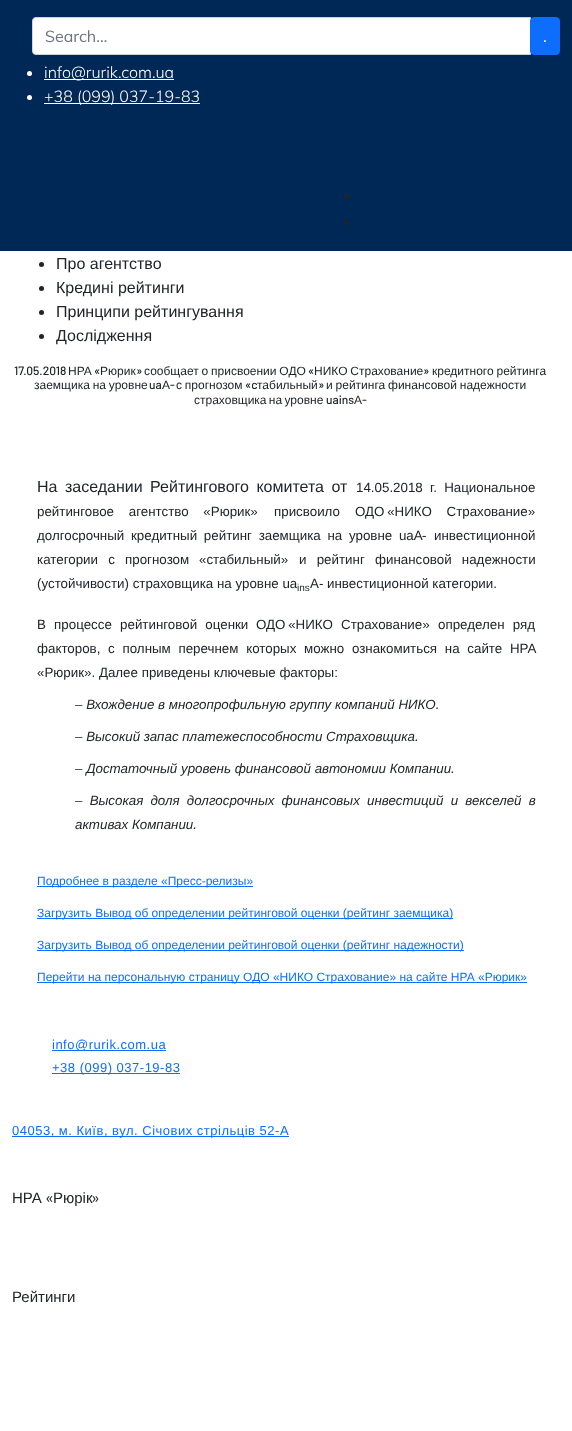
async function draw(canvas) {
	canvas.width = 572;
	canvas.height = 1431;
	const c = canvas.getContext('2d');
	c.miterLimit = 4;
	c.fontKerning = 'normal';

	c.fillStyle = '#fff';
	c.fillRect(0, 0, 572, 1431);
	c.fillStyle = '#002856';
	c.fillRect(0, 0, 572, 251);
	c.fillStyle = '#fff';
	c.beginPath();
	c.roundRect(32.5, 17.5, 498, 37, [3.5, 0, 0, 3.5]);
	c.fill();
	c.strokeStyle = '#ced4da';
	c.stroke();
	c.font = '16px Muli';
	c.fillStyle = '#6c757d';
	c.fillText('Search…', 45, 42);
	c.fillStyle = '#0d6efd';
	c.beginPath();
	c.roundRect(530.5, 17.5, 29, 37, 3.5);
	c.fill();
	c.strokeStyle = '#0d6efd';
	c.stroke();
	c.fillStyle = '#fff';
	c.fillText('.', 543, 42);
	c.beginPath();
	c.arc(29.5, 73.5, 2.5, 0, 2 * Math.PI);
	c.fill();
	c.fillRect(44, 79, 130, 1);
	c.font = '300 16px Muli';
	c.fillText('info@rurik.com.ua', 44, 78);
	c.beginPath();
	c.arc(29.5, 97.5, 2.5, 0, 2 * Math.PI);
	c.fill();
	c.fillRect(44, 103, 156, 1);
	c.fillText('+38 (099) 037-19-83', 44, 102);
	c.fillStyle = '#212529';
	c.beginPath();
	c.arc(346.5, 196.5, 2.5, 0, 2 * Math.PI);
	c.fill();
	c.beginPath();
	c.arc(346.5, 222.5, 2.5, 0, 2 * Math.PI);
	c.fill();
	c.beginPath();
	c.arc(41.5, 264.5, 2.5, 0, 2 * Math.PI);
	c.fill();
	c.font = '16px Liberation Sans';
	c.fillText('Про агентство', 56, 269);
	c.beginPath();
	c.arc(41.5, 288.5, 2.5, 0, 2 * Math.PI);
	c.fill();
	c.fillText('Кредині рейтинги', 56, 293);
	c.beginPath();
	c.arc(41.5, 312.5, 2.5, 0, 2 * Math.PI);
	c.fill();
	c.fillText('Принципи рейтингування', 56, 317);
	c.beginPath();
	c.arc(41.5, 336.5, 2.5, 0, 2 * Math.PI);
	c.fill();
	c.fillText('Дослідження', 56, 341);
	c.font = '500 12px Barlow';
	c.fillText('17.05.2018', 14, 375);
	c.font = '12px Liberation Sans';
	c.fillText('НРА', 68, 375);
	c.font = '500 12px Barlow';
	c.fillText('«', 94, 375);
	c.font = '12px Liberation Sans';
	c.fillText('Рюрик', 100, 375);
	c.font = '500 12px Barlow';
	c.fillText('»', 136, 375);
	c.wordSpacing = '-0.5px';
	c.font = '12px Liberation Sans';
	c.fillText('сообщает о присвоении ОДО', 144, 375);
	c.wordSpacing = '0px';
	c.font = '500 12px Barlow';
	c.fillText('«', 308, 375);
	c.wordSpacing = '-0.5px';
	c.font = '12px Liberation Sans';
	c.fillText('НИКО Страхование', 314, 375);
	c.wordSpacing = '0px';
	c.font = '500 12px Barlow';
	c.fillText('»', 423, 375);
	c.wordSpacing = '-0.5px';
	c.font = '12px Liberation Sans';
	c.fillText('кредитного рейтинга', 432, 375);
	c.fillText('заемщика на уровне', 34, 389);
	c.wordSpacing = '0px';
	c.font = '500 12px Barlow';
	c.fillText('ua', 149, 389);
	c.font = '12px Liberation Sans';
	c.fillText('А', 162, 389);
	c.font = '500 12px Barlow';
	c.fillText('-', 170, 389);
	c.wordSpacing = '-0.5px';
	c.font = '12px Liberation Sans';
	c.fillText('с прогнозом', 176, 389);
	c.wordSpacing = '0px';
	c.font = '500 12px Barlow';
	c.fillText('«c', 245, 389);
	c.font = '12px Liberation Sans';
	c.fillText('табильный', 257, 389);
	c.font = '500 12px Barlow';
	c.fillText('»', 318, 389);
	c.wordSpacing = '-0.5px';
	c.font = '12px Liberation Sans';
	c.fillText('и рейтинга финансовой надежности', 326, 389);
	c.wordSpacing = '-1px';
	c.fillText('страховщика на уровне', 194, 404);
	c.wordSpacing = '0px';
	c.font = '500 12px Barlow';
	c.fillText('uains', 326, 404);
	c.font = '12px Liberation Sans';
	c.fillText('А', 354, 404);
	c.font = '500 12px Barlow';
	c.fillText('-', 362, 404);
	c.wordSpacing = '3px';
	c.font = '16px Liberation Sans';
	c.fillText('На заседании Рейтингового комитета от', 37, 492);
	c.wordSpacing = '0px';
	c.font = '13.35px Liberation Sans';
	c.fillText('14.05.2018', 356, 492);
	c.wordSpacing = '3.5px';
	c.fillText('г. Национальное', 430, 492);
	c.wordSpacing = '11px';
	c.fillText('рейтинговое агентство «Рюрик»', 37, 516);
	c.wordSpacing = '0px';
	c.fillText('присвоило', 274, 516);
	c.wordSpacing = '11px';
	c.fillText('ОДО «НИКО Страхование»', 355, 516);
	c.wordSpacing = '3px';
	c.fillText('долгосрочный кредитный рейтинг заемщика на уровне uaА', 37, 540);
	c.wordSpacing = '0px';
	c.fillText('-', 422, 540);
	c.fillText('инвестиционной', 434, 540);
	c.wordSpacing = '6.5px';
	c.fillText('категории с прогнозом', 37, 564);
	c.wordSpacing = '0px';
	c.fillText('«стабильный»', 199, 564);
	c.wordSpacing = '6.5px';
	c.fillText('и рейтинг финансовой надежности', 299, 564);
	c.wordSpacing = '0px';
	c.fillText('(устойчивости) страховщика на уровне ua', 37, 588);
	c.fillText('А- инвестиционной категории.', 310, 588);
	c.font = '10px Liberation Sans';
	c.fillText('ins', 297, 591);
	c.wordSpacing = '4.5px';
	c.font = '13.35px Liberation Sans';
	for (const [text, x, y] of [
		['В процессе рейтинговой оценки', 37, 629],
		['ОДО «НИКО Страхование»', 256, 629],
		['определен ряд', 438, 629],
	]) {
		c.fillText(text, x, y);
	}
	c.wordSpacing = '4px';
	c.fillText('факторов, с полным перечнем которых можно ознакомиться на сайте НРА', 37, 653);
	c.wordSpacing = '0px';
	c.fillText('«Рюрик». Далее приведены ключевые факторы:', 37, 677);
	c.font = 'italic 13.35px Liberation Sans';
	for (const [text, x, y] of [
		['– Вхождение в многопрофильную группу компаний НИКО.', 75, 709],
		['– Высокий запас платежеспособности Страховщика.', 75, 741],
		['– Достаточный уровень финансовой автономии Компании.', 75, 773],
	]) {
		c.fillText(text, x, y);
	}
	c.wordSpacing = '3.5px';
	c.fillText('– Высокая доля долгосрочных финансовых инвестиций и векселей в', 75, 805);
	c.wordSpacing = '0px';
	c.fillText('активах Компании.', 75, 829);
	c.fillStyle = '#0d6efd';
	c.fillRect(37, 886, 216, 1);
	c.font = '12px Liberation Sans';
	c.fillText('Подробнее в разделе «Пресс-релизы»', 37, 885);
	c.fillRect(37, 918, 416, 1);
	c.fillText('Загрузить Вывод об определении рейтинговой оценки (рейтинг заемщика)', 37, 917);
	c.fillRect(37, 950, 427, 1);
	c.fillText('Загрузить Вывод об определении рейтинговой оценки (рейтинг надежности)', 37, 949);
	c.fillRect(37, 982, 490, 1);
	c.fillText('Перейти на персональную страницу ОДО «НИКО Страхование» на сайте НРА «Рюрик»', 37, 981);
	c.fillRect(52, 1050, 114, 1);
	c.letterSpacing = '0.5px';
	c.font = '13px Liberation Sans';
	c.fillText('info@rurik.com.ua', 52, 1049);
	c.fillRect(52, 1073, 128, 1);
	c.fillText('+38 (099) 037-19-83', 52, 1072);
	c.fillRect(12, 1136, 277, 1);
	c.fillText('04053, м. Київ, вул. Січових стрільців 52-А', 12, 1135);
	c.letterSpacing = '0px';
	c.font = '15px Liberation Sans';
	c.fillStyle = '#212529';
	c.fillText('НРА', 12, 1203);
	c.font = '500 15px Muli';
	c.fillText('«', 46, 1203);
	c.font = '15px Liberation Sans';
	c.fillText('Рюрік', 53, 1203);
	c.font = '500 15px Muli';
	c.fillText('»', 92, 1203);
	c.font = '15px Liberation Sans';
	c.fillText('Рейтинги', 12, 1302);
}

draw(document.querySelector('canvas'));
